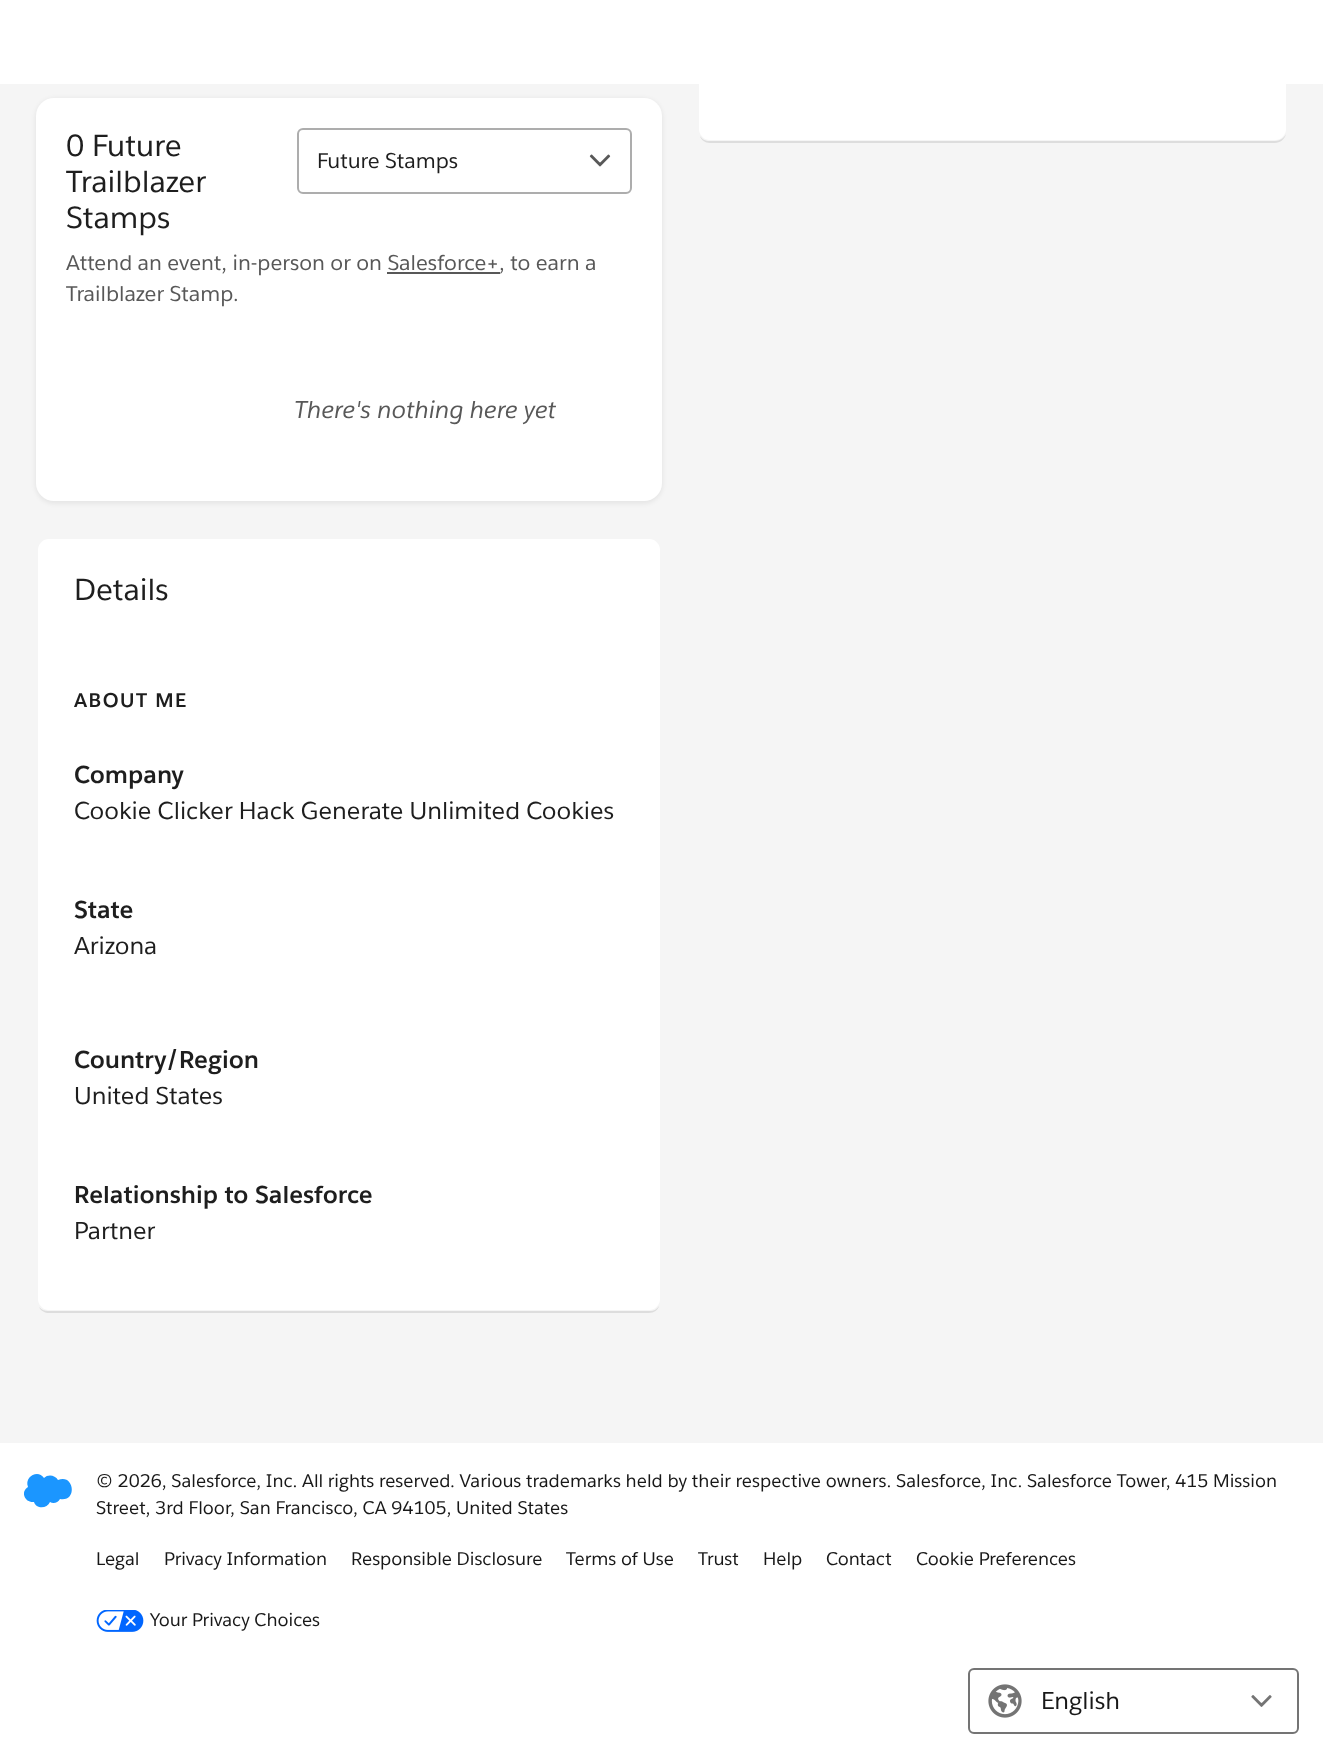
async function draw(canvas) {
	canvas.width = 1323;
	canvas.height = 1753;
	const c = canvas.getContext('2d');
	c.miterLimit = 4;
	c.fontKerning = 'normal';
	async function loadImage(src) {
		const img = new Image();
		img.src = src;
		await img.decode();
		return img;
	}

	c.fillStyle = '#f5f5f5';
	c.fillRect(0, 0, 1323, 1753);
	c.fillStyle = '#ddd';
	c.beginPath();
	c.moveTo(700, 136);
	c.bezierCurveTo(701, 140, 705, 143, 710, 143);
	c.lineTo(1275, 143);
	c.bezierCurveTo(1280, 143, 1285, 139, 1286, 134);
	c.bezierCurveTo(1284, 138, 1280, 141, 1275, 141);
	c.lineTo(710, 141);
	c.bezierCurveTo(705, 141, 702, 139, 700, 136);
	c.closePath();
	c.fill();
	c.fillStyle = '#fff';
	c.beginPath();
	c.roundRect(699, -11, 587, 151, 11);
	c.fill();
	c.fillRect(0, 0, 1323, 84);
	c.fillStyle = '#0000000f';
	c.filter = 'blur(2px)';
	c.beginPath();
	c.roundRect(35, 98, 628, 406, 20);
	c.fill();
	c.filter = 'none';
	c.fillStyle = '#fff';
	c.beginPath();
	c.roundRect(36, 98, 626, 403, 18);
	c.fill();
	c.font = '30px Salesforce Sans';
	c.fillStyle = '#1e1e1e';
	for (const [text, x, y] of [
		['0 Future', 66, 156],
		['Trailblazer', 66, 192],
		['Stamps', 66, 228],
	]) {
		c.fillText(text, x, y);
	}
	c.beginPath();
	c.roundRect(298, 129, 333, 64, 5);
	c.strokeStyle = '#adadad';
	c.lineWidth = 2;
	c.stroke();
	c.font = '21px Salesforce Sans';
	c.fillText('Future Stamps', 317, 168);
	c.drawImage(await loadImage('img1.png'), 589, 154, 22, 13);
	c.fillStyle = '#585858';
	c.fillText('Attend an event, in-person or on Salesforce+, to earn a', 66, 270);
	c.fillRect(387, 272, 113, 2);
	c.fillText('Trailblazer Stamp.', 66, 301);
	c.font = 'italic 24px Salesforce Sans';
	c.fillText('There\'s nothing here yet', 294, 418);
	c.fillStyle = '#ddd';
	c.beginPath();
	c.moveTo(39, 1307);
	c.bezierCurveTo(41, 1311, 45, 1313, 49, 1313);
	c.lineTo(649, 1313);
	c.bezierCurveTo(654, 1313, 658, 1310, 659, 1306);
	c.bezierCurveTo(657, 1309, 654, 1311, 650, 1311);
	c.lineTo(48, 1311);
	c.bezierCurveTo(45, 1311, 42, 1310, 39, 1307);
	c.closePath();
	c.fill();
	c.fillStyle = '#fff';
	c.beginPath();
	c.roundRect(38, 539, 622, 771, 11);
	c.fill();
	c.font = '30px Salesforce Sans';
	c.fillStyle = '#1e1e1e';
	c.fillText('Details', 74, 600);
	c.letterSpacing = '1.5px';
	c.font = 'bold 19.5px Salesforce Sans';
	c.fillText('ABOUT ME', 74, 707);
	c.letterSpacing = '0px';
	c.font = 'bold 24px Salesforce Sans';
	c.fillText('Company', 74, 783);
	c.font = '24px Salesforce Sans';
	c.fillText('Cookie Clicker Hack Generate Unlimited Cookies', 74, 819);
	c.font = 'bold 24px Salesforce Sans';
	c.fillText('State', 74, 918);
	c.font = '24px Salesforce Sans';
	c.fillText('Arizona', 74, 954);
	c.font = 'bold 24px Salesforce Sans';
	c.fillText('Country/Region', 74, 1068);
	c.font = '24px Salesforce Sans';
	c.fillText('United States', 74, 1104);
	c.font = 'bold 24px Salesforce Sans';
	c.fillText('Relationship to Salesforce', 74, 1203);
	c.font = '24px Salesforce Sans';
	c.fillText('Partner', 74, 1239);
	c.fillStyle = '#fff';
	c.fillRect(0, 1443, 1323, 310);
	c.fillStyle = '#1b96ff';
	c.beginPath();
	c.moveTo(44, 1478);
	c.bezierCurveTo(48, 1474, 55, 1475, 58, 1480);
	c.bezierCurveTo(74, 1473, 78, 1502, 60, 1499);
	c.bezierCurveTo(58, 1503, 53, 1504, 50, 1502);
	c.bezierCurveTo(47, 1509, 36, 1509, 34, 1502);
	c.bezierCurveTo(25, 1503, 20, 1492, 28, 1487);
	c.bezierCurveTo(24, 1477, 38, 1469, 44, 1478);
	c.fill();
	c.letterSpacing = '0.04px';
	c.font = '18px Salesforce Sans';
	c.fillStyle = '#181818';
	c.fillText('© 2026, Salesforce, Inc.', 96, 1487);
	c.letterSpacing = '0px';
	c.fillText('All rights reserved', 302, 1487);
	c.letterSpacing = '0.04px';
	c.fillText('. Various trademarks held by their respective owners. Salesforce, Inc. Salesforce Tower, 415 Mission', 450, 1487);
	c.fillText('Street, 3rd Floor, San Francisco, CA 94105, United States', 96, 1514);
	c.letterSpacing = '0px';
	for (const [text, x, y] of [
		['Legal', 96, 1565],
		['Privacy Information', 164, 1565],
		['Responsible Disclosure', 351, 1565],
		['Terms of Use', 566, 1565],
		['Trust', 698, 1565],
		['Help', 763, 1565],
		['Contact', 826, 1565],
		['Cookie Preferences', 916, 1565],
	]) {
		c.fillText(text, x, y);
	}
	c.drawImage(await loadImage('img2.png'), 96, 1610, 48, 22);
	c.fillText('Your Privacy Choices', 150, 1626);
	c.beginPath();
	c.roundRect(969, 1669, 329, 64, 5);
	c.strokeStyle = '#747474';
	c.stroke();
	c.drawImage(await loadImage('img3.png'), 988, 1684, 34, 34);
	c.font = '24px Salesforce Sans';
	c.fillText('English', 1041, 1709);
	c.drawImage(await loadImage('img4.png'), 1251, 1695, 21, 12);
}

draw(document.querySelector('canvas'));
